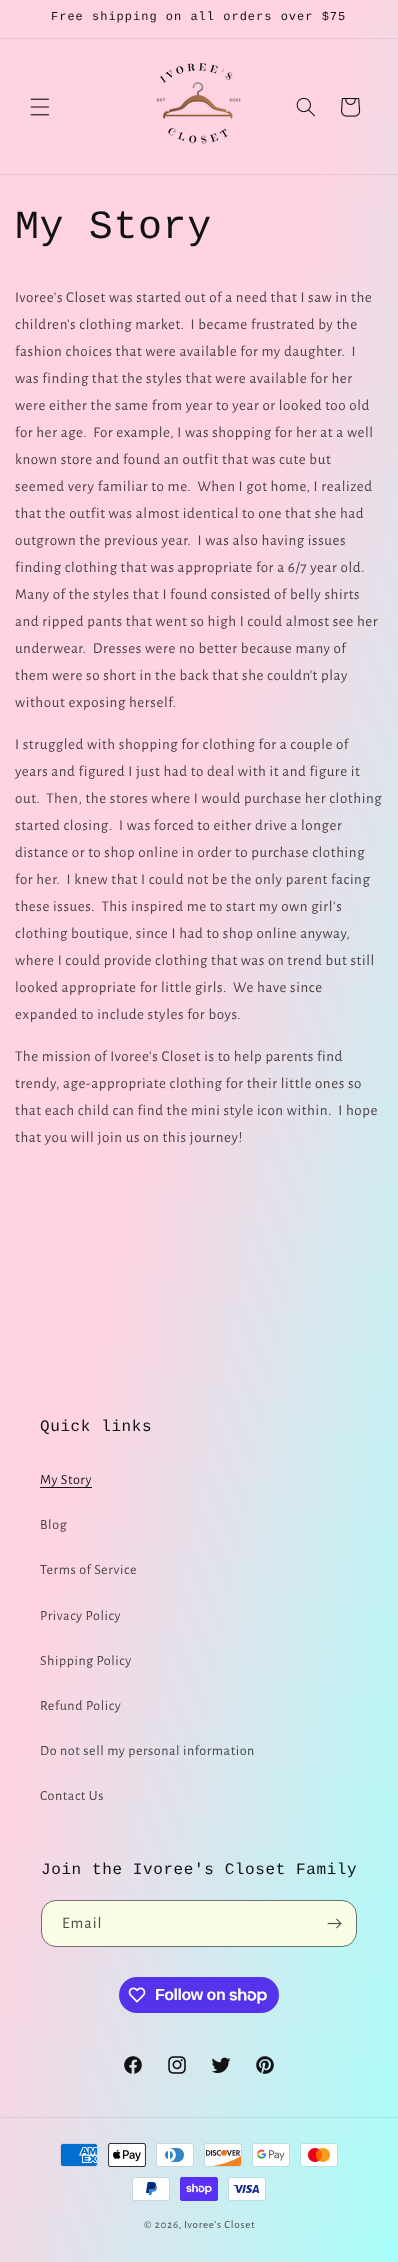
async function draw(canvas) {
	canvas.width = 398;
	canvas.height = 2262;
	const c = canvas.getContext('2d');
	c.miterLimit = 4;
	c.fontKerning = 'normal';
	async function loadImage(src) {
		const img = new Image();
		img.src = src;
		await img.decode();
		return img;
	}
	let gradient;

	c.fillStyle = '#fff';
	c.fillRect(0, 0, 398, 2262);
	gradient = c.createLinearGradient(-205, 1053, 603, 1209);
	gradient.addColorStop(0.42, '#ffd3e2');
	gradient.addColorStop(1, '#a8fffb');
	c.fillStyle = gradient;
	c.fillRect(0, 0, 398, 2262);
	gradient = c.createLinearGradient(-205, 1053, 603, 1209);
	gradient.addColorStop(0.42, '#ecc4d1');
	gradient.addColorStop(1, '#9cece8');
	c.fillStyle = gradient;
	c.fillRect(0, 38, 398, 1);
	c.fillRect(0, 174, 398, 1);
	c.fillRect(0, 2117, 398, 1);
	c.letterSpacing = '1px';
	c.font = '12px Liberation Mono';
	c.fillStyle = '#121212';
	c.fillText('Free shipping on all orders over $75', 51, 20);
	c.drawImage(await loadImage('img1.png'), 30, 98, 20, 18);
	c.drawImage(await loadImage('img2.png'), 156, 63, 85, 81);
	c.drawImage(await loadImage('img3.png'), 296, 97, 19, 20);
	c.drawImage(await loadImage('img4.png'), 341, 98, 20, 19);
	c.letterSpacing = '0.6px';
	c.font = '40px Liberation Mono';
	c.fillText('My Story', 15, 238);
	c.font = '15px Alegreya Sans';
	c.fillStyle = '#4d4246';
	for (const [text, x, y] of [
		['Ivoree\'s Closet was started out of a need that I saw in the', 15, 302],
		['children\'s clothing market.  I became frustrated by the', 15, 329],
		['fashion choices that were available for my daughter.  I', 15, 356],
		['was finding that the styles that were available for her', 15, 383],
		['were either the same from year to year or looked too old', 15, 410],
		['for her age.  For example, I was shopping for her at a well', 15, 437],
		['known store and found an outfit that was cute but', 15, 464],
		['seemed very familiar to me.  When I got home, I realized', 15, 491],
		['that the outfit was almost identical to one that she had', 15, 518],
		['outgrown the previous year.  I was also having issues', 15, 545],
		['finding clothing that was appropriate for a 6/7 year old.', 15, 572],
		['Many of the styles that I found consisted of belly shirts', 15, 599],
		['and ripped pants that went so high I could almost see her', 15, 626],
		['underwear.  Dresses were no better because many of', 15, 653],
		['them were so short in the back that she couldn\'t play', 15, 680],
		['without exposing herself.', 15, 707],
		['I struggled with shopping for clothing for a couple of', 15, 749],
		['years and figured I just had to deal with it and figure it', 15, 776],
		['out.  Then, the stores where I would purchase her clothing', 15, 803],
		['started closing.  I was forced to either drive a longer', 15, 830],
		['distance or to shop online in order to purchase clothing', 15, 857],
		['for her.  I knew that I could not be the only parent facing', 15, 884],
		['these issues.  This inspired me to start my own girl\'s', 15, 911],
		['clothing boutique, since I had to shop online anyway,', 15, 938],
		['where I could provide clothing that was on trend but still', 15, 965],
		['looked appropriate for little girls.  We have since', 15, 992],
		['expanded to include styles for boys.', 15, 1019],
		['The mission of Ivoree\'s Closet is to help parents find', 15, 1061],
		['trendy, age-appropriate clothing for their little ones so', 15, 1088],
		['that each child can find the mini style icon within.  I hope', 15, 1115],
		['that you will join us on this journey!', 15, 1142],
	]) {
		c.fillText(text, x, y);
	}
	c.font = '16px Liberation Mono';
	c.fillStyle = '#121212';
	c.fillText('Quick links', 40, 1431);
	c.font = '14px Alegreya Sans';
	c.fillText('My Story', 40, 1484);
	c.fillRect(40, 1487, 52, 1);
	c.fillStyle = '#4d4246';
	for (const [text, x, y] of [
		['Blog', 40, 1529],
		['Terms of Service', 40, 1574],
		['Privacy Policy', 40, 1620],
		['Shipping Policy', 40, 1665],
		['Refund Policy', 40, 1710],
	]) {
		c.fillText(text, x, y);
	}
	c.fillStyle = '#434849';
	c.fillText('Do not sell my personal information', 40, 1755);
	c.fillStyle = '#4d4246';
	c.fillText('Contact Us', 40, 1800);
	c.font = '16px Liberation Mono';
	c.fillStyle = '#121212';
	c.fillText('Join the Ivoree\'s Closet Family', 41, 1874);
	c.fillStyle = '#fafce3';
	c.beginPath();
	c.roundRect(42, 1901, 314, 45, 14);
	c.fill();
	c.beginPath();
	c.roundRect(41.5, 1900.5, 315, 46, 14.5);
	c.strokeStyle = '#1212128c';
	c.stroke();
	c.letterSpacing = '1px';
	c.font = '16px Alegreya Sans';
	c.fillStyle = '#4c4d46';
	c.fillText('Email', 62, 1928);
	c.drawImage(await loadImage('img5.png'), 327, 1918, 15, 11);
	c.fillStyle = '#5433eb';
	c.beginPath();
	c.roundRect(119, 1977, 160, 36, 18);
	c.fill();
	c.drawImage(await loadImage('img6.png'), 128, 1987, 18, 16);
	c.letterSpacing = '-0.5px';
	c.font = 'bold 16px Liberation Sans';
	c.fillStyle = '#fff';
	c.fillText('Follow on', 155, 2000);
	c.drawImage(await loadImage('img7.png'), 229, 1988, 38, 16);
	c.drawImage(await loadImage('img8.png'), 124, 2056, 18, 18);
	c.drawImage(await loadImage('img9.png'), 168, 2056, 18, 18);
	c.drawImage(await loadImage('img10.png'), 211, 2057, 20, 16);
	c.drawImage(await loadImage('img11.png'), 256, 2056, 18, 18);
	c.drawImage(await loadImage('img12.png'), 60, 2143, 38, 24);
	c.drawImage(await loadImage('img13.png'), 108, 2143, 38, 24);
	c.drawImage(await loadImage('img14.png'), 156, 2143, 38, 24);
	c.drawImage(await loadImage('img15.png'), 204, 2143, 38, 24);
	c.drawImage(await loadImage('img16.png'), 252, 2143, 38, 24);
	c.drawImage(await loadImage('img17.png'), 300, 2143, 38, 24);
	c.drawImage(await loadImage('img18.png'), 132, 2177, 38, 24);
	c.drawImage(await loadImage('img19.png'), 180, 2177, 38, 24);
	c.drawImage(await loadImage('img20.png'), 228, 2177, 38, 24);
	c.letterSpacing = '0.75px';
	c.font = '11px Alegreya Sans';
	c.fillStyle = '#434849';
	c.fillText('© 2026,', 144, 2228);
	c.fillText('Ivoree’s Closet', 184, 2228);
}

draw(document.querySelector('canvas'));
